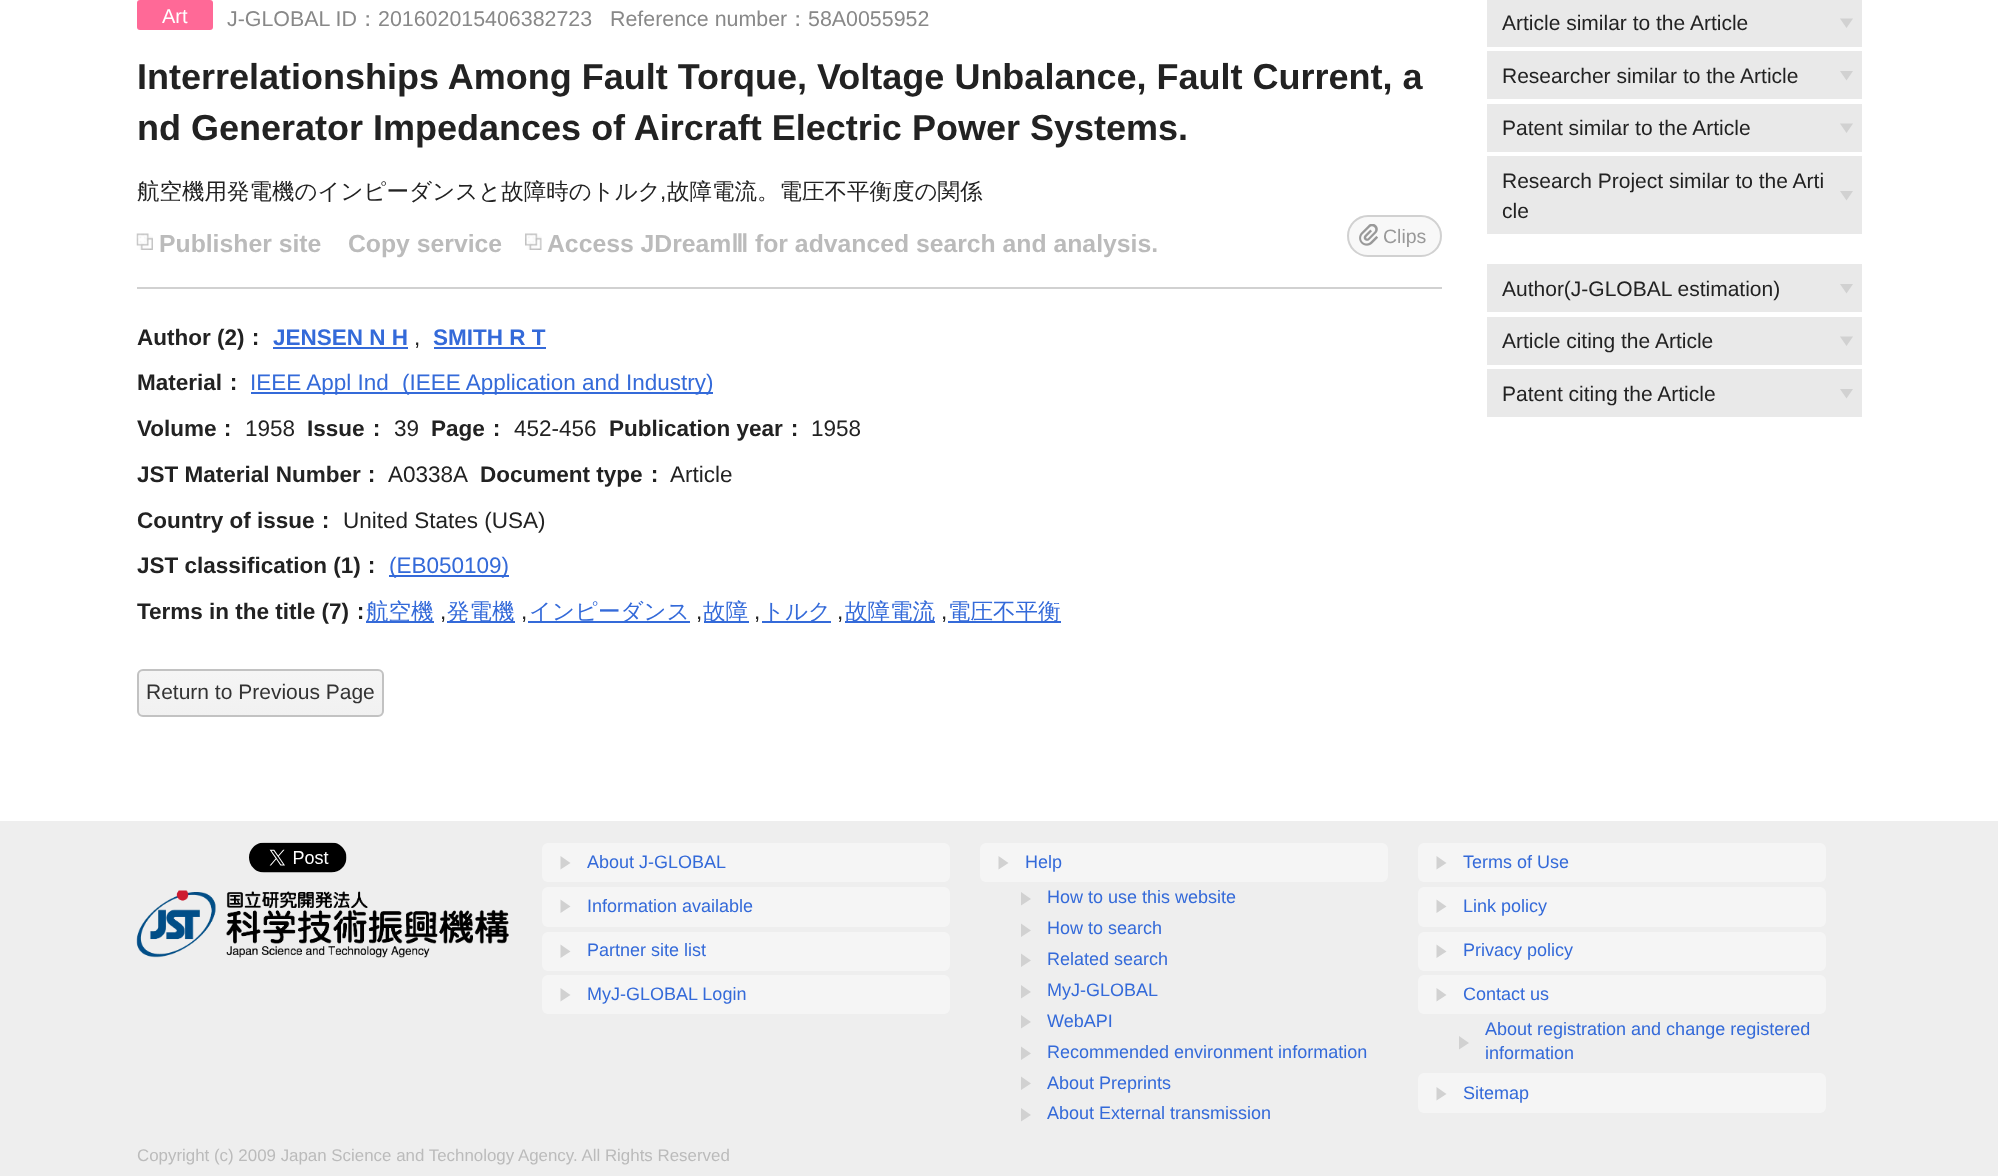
async function draw(canvas) {
	canvas.width = 1998;
	canvas.height = 1176;
	const c = canvas.getContext('2d');
	c.miterLimit = 4;
	c.fontKerning = 'normal';
	async function loadImage(src) {
		const img = new Image();
		img.src = src;
		await img.decode();
		return img;
	}
	let gradient;

	c.fillStyle = '#fff';
	c.fillRect(0, 0, 1998, 1176);
	c.fillStyle = '#d1d1d1';
	c.fillRect(137, 287, 1305, 2);
	c.fillStyle = '#ff6997';
	c.beginPath();
	c.roundRect(137, 0, 76, 30, 3);
	c.fill();
	c.font = '20px Liberation Sans';
	c.fillStyle = '#fff';
	c.fillText('Art', 162, 23);
	c.font = '21.4px Liberation Sans';
	c.fillStyle = '#888';
	c.fillText('J-GLOBAL ID', 227, 26);
	c.font = '500 21.4px WenQuanYi Zen Hei';
	c.fillText('：', 357, 26);
	c.font = '21.4px Liberation Sans';
	c.fillText('201602015406382723', 378, 26);
	c.fillText('Reference number', 610, 26);
	c.font = '500 21.4px WenQuanYi Zen Hei';
	c.fillText('：', 787, 26);
	c.font = '21.4px Liberation Sans';
	c.fillText('58A0055952', 808, 26);
	c.font = 'bold 36px Liberation Sans';
	c.fillStyle = '#222';
	c.fillText('Interrelationships Among Fault Torque, Voltage Unbalance, Fault Current, a', 137, 89);
	c.fillText('nd Generator Impedances of Aircraft Electric Power Systems.', 137, 140);
	c.font = '500 22.5px WenQuanYi Zen Hei';
	c.fillText('航空機用発電機のインピーダンスと故障時のトルク', 137, 199);
	c.font = '22.5px Liberation Sans';
	c.fillText(',', 660, 199);
	c.font = '500 22.5px WenQuanYi Zen Hei';
	c.fillText('故障電流。電圧不平衡度の関係', 667, 199);
	c.drawImage(await loadImage('img1.png'), 136, 233, 17, 17);
	c.font = 'bold 24.75px Liberation Sans';
	c.fillStyle = '#bbb';
	c.fillText('Publisher site', 159, 252);
	c.fillText('Copy service', 348, 252);
	c.drawImage(await loadImage('img2.png'), 525, 233, 17, 17);
	c.fillText('Access JDream', 547, 252);
	c.font = 'bold 24.75px DejaVu Sans';
	c.fillText('Ⅲ', 731, 252);
	c.font = 'bold 24.75px Liberation Sans';
	c.fillText('for advanced search and analysis.', 755, 252);
	c.fillStyle = '#f8f8f8';
	c.beginPath();
	c.roundRect(1347, 215, 95, 42, 21);
	c.fill();
	c.drawImage(await loadImage('img3.png'), 1359, 224, 19, 22);
	c.beginPath();
	c.roundRect(1348, 216, 93, 40, 20);
	c.strokeStyle = '#d1d1d1';
	c.lineWidth = 2;
	c.stroke();
	c.font = '19.5px Liberation Sans';
	c.fillStyle = '#999';
	c.fillText('Clips', 1383, 243);
	c.font = 'bold 22.5px Liberation Sans';
	c.fillStyle = '#222';
	c.fillText('Author (2)', 137, 345);
	c.font = 'bold 22.5px WenQuanYi Zen Hei';
	c.fillText('：', 244, 345);
	c.font = 'bold 22.5px Liberation Sans';
	c.fillStyle = '#346ad9';
	c.fillText('JENSEN N H', 273, 345);
	c.fillRect(273, 347, 135, 2);
	c.font = '22.5px Liberation Sans';
	c.fillStyle = '#222';
	c.fillText(',', 414, 345);
	c.font = 'bold 22.5px Liberation Sans';
	c.fillStyle = '#346ad9';
	c.fillText('SMITH R T', 433, 345);
	c.fillRect(434, 347, 112, 2);
	c.fillStyle = '#222';
	c.fillText('Material', 137, 390);
	c.font = 'bold 22.5px WenQuanYi Zen Hei';
	c.fillText('：', 222, 390);
	c.fillStyle = '#346ad9';
	c.fillRect(251, 392, 462, 2);
	c.font = '22.5px Liberation Sans';
	c.fillText('IEEE Appl Ind', 250, 390);
	c.fillText('(IEEE Application and Industry)', 402, 390);
	c.font = 'bold 22.5px Liberation Sans';
	c.fillStyle = '#222';
	c.fillText('Volume', 137, 436);
	c.font = 'bold 22.5px WenQuanYi Zen Hei';
	c.fillText('：', 216, 436);
	c.font = '22.5px Liberation Sans';
	c.fillText('1958', 245, 436);
	c.font = 'bold 22.5px Liberation Sans';
	c.fillText('Issue', 307, 436);
	c.font = 'bold 22.5px WenQuanYi Zen Hei';
	c.fillText('：', 365, 436);
	c.font = '22.5px Liberation Sans';
	c.fillText('39', 394, 436);
	c.font = 'bold 22.5px Liberation Sans';
	c.fillText('Page', 431, 436);
	c.font = 'bold 22.5px WenQuanYi Zen Hei';
	c.fillText('：', 485, 436);
	c.font = '22.5px Liberation Sans';
	c.fillText('452-456', 514, 436);
	c.font = 'bold 22.5px Liberation Sans';
	c.fillText('Publication year', 609, 436);
	c.font = 'bold 22.5px WenQuanYi Zen Hei';
	c.fillText('：', 783, 436);
	c.font = '22.5px Liberation Sans';
	c.fillText('1958', 811, 436);
	c.font = 'bold 22.5px Liberation Sans';
	c.fillText('JST Material Number', 137, 482);
	c.font = 'bold 22.5px WenQuanYi Zen Hei';
	c.fillText('：', 360, 482);
	c.font = '22.5px Liberation Sans';
	c.fillText('A0338A', 388, 482);
	c.font = 'bold 22.5px Liberation Sans';
	c.fillText('Document type', 480, 482);
	c.font = 'bold 22.5px WenQuanYi Zen Hei';
	c.fillText('：', 643, 482);
	c.font = '22.5px Liberation Sans';
	c.fillText('Article', 670, 482);
	c.font = 'bold 22.5px Liberation Sans';
	c.fillText('Country of issue', 137, 528);
	c.font = 'bold 22.5px WenQuanYi Zen Hei';
	c.fillText('：', 314, 528);
	c.font = '22.5px Liberation Sans';
	c.fillText('United States (USA)', 343, 528);
	c.font = 'bold 22.5px Liberation Sans';
	c.fillText('JST classification (1)', 137, 573);
	c.font = 'bold 22.5px WenQuanYi Zen Hei';
	c.fillText('：', 360, 573);
	c.fillStyle = '#346ad9';
	c.fillRect(389, 575, 120, 2);
	c.font = '22.5px Liberation Sans';
	c.fillText('(EB050109)', 389, 573);
	c.save();
	c.beginPath();
	c.rect(137, 0, 1305, 746);
	c.clip();
	c.font = 'bold 22.5px Liberation Sans';
	c.fillStyle = '#222';
	c.fillText('Terms in the title (7)', 137, 619);
	c.restore();
	c.font = 'bold 22.5px WenQuanYi Zen Hei';
	c.fillStyle = '#222';
	c.fillText('：', 349, 619);
	c.fillStyle = '#346ad9';
	c.fillRect(366, 621, 68, 2);
	c.font = '500 22.5px WenQuanYi Zen Hei';
	c.fillText('航空機', 366, 619);
	c.font = '22.5px Liberation Sans';
	c.fillStyle = '#222';
	c.fillText(',', 440, 619);
	c.fillStyle = '#346ad9';
	c.fillRect(447, 621, 68, 2);
	c.font = '500 22.5px WenQuanYi Zen Hei';
	c.fillText('発電機', 447, 619);
	c.font = '22.5px Liberation Sans';
	c.fillStyle = '#222';
	c.fillText(',', 521, 619);
	c.fillStyle = '#346ad9';
	c.fillRect(528, 621, 162, 2);
	c.font = '500 22.5px WenQuanYi Zen Hei';
	c.fillText('インピーダンス', 529, 619);
	c.font = '22.5px Liberation Sans';
	c.fillStyle = '#222';
	c.fillText(',', 696, 619);
	c.fillStyle = '#346ad9';
	c.fillRect(704, 621, 45, 2);
	c.font = '500 22.5px WenQuanYi Zen Hei';
	c.fillText('故障', 703, 619);
	c.font = '22.5px Liberation Sans';
	c.fillStyle = '#222';
	c.fillText(',', 754, 619);
	c.fillStyle = '#346ad9';
	c.fillRect(762, 621, 69, 2);
	c.font = '500 22.5px WenQuanYi Zen Hei';
	c.fillText('トルク', 762, 619);
	c.font = '22.5px Liberation Sans';
	c.fillStyle = '#222';
	c.fillText(',', 837, 619);
	c.fillStyle = '#346ad9';
	c.fillRect(845, 621, 90, 2);
	c.font = '500 22.5px WenQuanYi Zen Hei';
	c.fillText('故障電流', 845, 619);
	c.font = '22.5px Liberation Sans';
	c.fillStyle = '#222';
	c.fillText(',', 941, 619);
	c.fillStyle = '#346ad9';
	c.fillRect(948, 621, 113, 2);
	c.font = '500 22.5px WenQuanYi Zen Hei';
	c.fillText('電圧不平衡', 948, 619);
	c.save();
	c.beginPath();
	c.roundRect(137, 669, 247, 48, 6);
	c.clip();
	gradient = c.createLinearGradient(260, 671, 260, 716);
	gradient.addColorStop(0, '#f5f5f5');
	gradient.addColorStop(1, '#f1f1f1');
	c.fillStyle = gradient;
	c.fillRect(137, 671, 247, 45);
	c.restore();
	c.beginPath();
	c.roundRect(138, 670, 245, 46, 5);
	c.strokeStyle = '#c2c2c2';
	c.stroke();
	c.font = '21px Liberation Sans';
	c.fillStyle = '#333';
	c.fillText('Return to Previous Page', 146, 699);
	c.fillStyle = '#e9e9e9';
	c.fillRect(1487, 0, 375, 47);
	c.fillStyle = '#d1d1d1';
	c.beginPath();
	c.moveTo(1853, 18.5);
	c.lineTo(1846.5, 28);
	c.lineTo(1840, 18.5);
	c.closePath();
	c.fill();
	c.fillStyle = '#222';
	c.fillText('Article similar to the Article', 1502, 30);
	c.fillStyle = '#e9e9e9';
	c.fillRect(1487, 51, 375, 48);
	c.fillStyle = '#d1d1d1';
	c.beginPath();
	c.moveTo(1853, 71);
	c.lineTo(1846.5, 80.5);
	c.lineTo(1840, 71);
	c.closePath();
	c.fill();
	c.fillStyle = '#222';
	c.fillText('Researcher similar to the Article', 1502, 83);
	c.fillStyle = '#e9e9e9';
	c.fillRect(1487, 104, 375, 48);
	c.fillStyle = '#d1d1d1';
	c.beginPath();
	c.moveTo(1853, 123.5);
	c.lineTo(1846.5, 133);
	c.lineTo(1840, 123.5);
	c.closePath();
	c.fill();
	c.fillStyle = '#222';
	c.fillText('Patent similar to the Article', 1502, 135);
	c.fillStyle = '#e9e9e9';
	c.fillRect(1487, 156, 375, 78);
	c.fillStyle = '#d1d1d1';
	c.beginPath();
	c.moveTo(1853, 191);
	c.lineTo(1846.5, 200.5);
	c.lineTo(1840, 191);
	c.closePath();
	c.fill();
	c.fillStyle = '#222';
	c.fillText('Research Project similar to the Arti', 1502, 188);
	c.fillText('cle', 1502, 218);
	c.fillStyle = '#e9e9e9';
	c.fillRect(1487, 264, 375, 48);
	c.fillStyle = '#d1d1d1';
	c.beginPath();
	c.moveTo(1853, 284);
	c.lineTo(1846.5, 293.5);
	c.lineTo(1840, 284);
	c.closePath();
	c.fill();
	c.fillStyle = '#222';
	c.fillText('Author(J-GLOBAL estimation)', 1502, 296);
	c.fillStyle = '#e9e9e9';
	c.fillRect(1487, 317, 375, 48);
	c.fillStyle = '#d1d1d1';
	c.beginPath();
	c.moveTo(1853, 336.5);
	c.lineTo(1846.5, 346);
	c.lineTo(1840, 336.5);
	c.closePath();
	c.fill();
	c.fillStyle = '#222';
	c.fillText('Article citing the Article', 1502, 348);
	c.fillStyle = '#e9e9e9';
	c.fillRect(1487, 369, 375, 48);
	c.fillStyle = '#d1d1d1';
	c.beginPath();
	c.moveTo(1853, 389);
	c.lineTo(1846.5, 398.5);
	c.lineTo(1840, 389);
	c.closePath();
	c.fill();
	c.fillStyle = '#222';
	c.fillText('Patent citing the Article', 1502, 401);
	c.fillStyle = '#eee';
	c.fillRect(0, 821, 1998, 355);
	c.drawImage(await loadImage('img4.png'), 249, 842, 98, 31);
	c.drawImage(await loadImage('img5.png'), 136, 890, 373, 68);
	c.fillStyle = '#f5f5f5';
	c.beginPath();
	c.roundRect(542, 843, 408, 39, 6);
	c.fill();
	c.fillStyle = '#d1d1d1';
	c.beginPath();
	c.moveTo(560.5, 856);
	c.lineTo(570.5, 863);
	c.lineTo(560.5, 869.5);
	c.closePath();
	c.fill();
	c.font = '18px Liberation Sans';
	c.fillStyle = '#346ad9';
	c.fillText('About J-GLOBAL', 587, 868);
	c.fillStyle = '#f5f5f5';
	c.beginPath();
	c.roundRect(542, 887, 408, 40, 6);
	c.fill();
	c.fillStyle = '#d1d1d1';
	c.beginPath();
	c.moveTo(560.5, 899.5);
	c.lineTo(570.5, 906.5);
	c.lineTo(560.5, 913);
	c.closePath();
	c.fill();
	c.fillStyle = '#346ad9';
	c.fillText('Information available', 587, 912);
	c.fillStyle = '#f5f5f5';
	c.beginPath();
	c.roundRect(542, 932, 408, 39, 6);
	c.fill();
	c.fillStyle = '#d1d1d1';
	c.beginPath();
	c.moveTo(560.5, 944.5);
	c.lineTo(570.5, 951.5);
	c.lineTo(560.5, 958);
	c.closePath();
	c.fill();
	c.fillStyle = '#346ad9';
	c.fillText('Partner site list', 587, 956);
	c.fillStyle = '#f5f5f5';
	c.beginPath();
	c.roundRect(542, 975, 408, 39, 6);
	c.fill();
	c.fillStyle = '#d1d1d1';
	c.beginPath();
	c.moveTo(560.5, 988);
	c.lineTo(570.5, 995);
	c.lineTo(560.5, 1001.5);
	c.closePath();
	c.fill();
	c.fillStyle = '#346ad9';
	c.fillText('MyJ-GLOBAL Login', 587, 1000);
	c.fillStyle = '#f5f5f5';
	c.beginPath();
	c.roundRect(980, 843, 408, 39, 6);
	c.fill();
	c.fillStyle = '#d1d1d1';
	c.beginPath();
	c.moveTo(998.5, 856);
	c.lineTo(1008.5, 863);
	c.lineTo(998.5, 869.5);
	c.closePath();
	c.moveTo(1021, 892);
	c.lineTo(1031, 899);
	c.lineTo(1021, 905.5);
	c.closePath();
	c.fill();
	c.fillStyle = '#346ad9';
	c.fillText('Help', 1025, 868);
	c.fillText('How to use this website', 1047, 903);
	c.fillStyle = '#d1d1d1';
	c.beginPath();
	c.moveTo(1021, 923.5);
	c.lineTo(1031, 930.5);
	c.lineTo(1021, 937);
	c.closePath();
	c.moveTo(1021, 953.5);
	c.lineTo(1031, 960.5);
	c.lineTo(1021, 967);
	c.closePath();
	c.fill();
	c.fillStyle = '#346ad9';
	c.fillText('How to search', 1047, 934);
	c.fillText('Related search', 1047, 965);
	c.fillStyle = '#d1d1d1';
	c.beginPath();
	c.moveTo(1021, 985);
	c.lineTo(1031, 992);
	c.lineTo(1021, 998.5);
	c.closePath();
	c.moveTo(1021, 1015);
	c.lineTo(1031, 1022);
	c.lineTo(1021, 1028.5);
	c.closePath();
	c.fill();
	c.fillStyle = '#346ad9';
	c.fillText('MyJ-GLOBAL', 1047, 996);
	c.fillText('WebAPI', 1047, 1027);
	c.fillStyle = '#d1d1d1';
	c.beginPath();
	c.moveTo(1021, 1046.5);
	c.lineTo(1031, 1053.5);
	c.lineTo(1021, 1060);
	c.closePath();
	c.moveTo(1021, 1076.5);
	c.lineTo(1031, 1083.5);
	c.lineTo(1021, 1090);
	c.closePath();
	c.fill();
	c.fillStyle = '#346ad9';
	c.fillText('Recommended environment information', 1047, 1058);
	c.fillText('About Preprints', 1047, 1089);
	c.fillStyle = '#d1d1d1';
	c.beginPath();
	c.moveTo(1021, 1108);
	c.lineTo(1031, 1115);
	c.lineTo(1021, 1121.5);
	c.closePath();
	c.fill();
	c.fillStyle = '#346ad9';
	c.fillText('About External transmission', 1047, 1119);
	c.fillStyle = '#f5f5f5';
	c.beginPath();
	c.roundRect(1418, 843, 408, 39, 6);
	c.fill();
	c.fillStyle = '#d1d1d1';
	c.beginPath();
	c.moveTo(1436.5, 856);
	c.lineTo(1446.5, 863);
	c.lineTo(1436.5, 869.5);
	c.closePath();
	c.fill();
	c.fillStyle = '#346ad9';
	c.fillText('Terms of Use', 1463, 868);
	c.fillStyle = '#f5f5f5';
	c.beginPath();
	c.roundRect(1418, 887, 408, 40, 6);
	c.fill();
	c.fillStyle = '#d1d1d1';
	c.beginPath();
	c.moveTo(1436.5, 899.5);
	c.lineTo(1446.5, 906.5);
	c.lineTo(1436.5, 913);
	c.closePath();
	c.fill();
	c.fillStyle = '#346ad9';
	c.fillText('Link policy', 1463, 912);
	c.fillStyle = '#f5f5f5';
	c.beginPath();
	c.roundRect(1418, 932, 408, 39, 6);
	c.fill();
	c.fillStyle = '#d1d1d1';
	c.beginPath();
	c.moveTo(1436.5, 944.5);
	c.lineTo(1446.5, 951.5);
	c.lineTo(1436.5, 958);
	c.closePath();
	c.fill();
	c.fillStyle = '#346ad9';
	c.fillText('Privacy policy', 1463, 956);
	c.fillStyle = '#f5f5f5';
	c.beginPath();
	c.roundRect(1418, 975, 408, 39, 6);
	c.fill();
	c.fillStyle = '#d1d1d1';
	c.beginPath();
	c.moveTo(1436.5, 988);
	c.lineTo(1446.5, 995);
	c.lineTo(1436.5, 1001.5);
	c.closePath();
	c.moveTo(1459, 1036);
	c.lineTo(1469, 1043);
	c.lineTo(1459, 1049.5);
	c.closePath();
	c.fill();
	c.fillStyle = '#346ad9';
	for (const [text, x, y] of [
		['Contact us', 1463, 1000],
		['About registration and change registered', 1485, 1035],
		['information', 1485, 1059],
	]) {
		c.fillText(text, x, y);
	}
	c.fillStyle = '#f5f5f5';
	c.beginPath();
	c.roundRect(1418, 1073, 408, 40, 6);
	c.fill();
	c.fillStyle = '#d1d1d1';
	c.beginPath();
	c.moveTo(1436.5, 1087);
	c.lineTo(1446.5, 1094);
	c.lineTo(1436.5, 1100.5);
	c.closePath();
	c.fill();
	c.fillStyle = '#346ad9';
	c.fillText('Sitemap', 1463, 1099);
	c.font = '16.9px Liberation Sans';
	c.fillStyle = '#bbb';
	c.fillText('Copyright (c) 2009 Japan Science and Technology Agency. All Rights Reserved', 137, 1161);
}

draw(document.querySelector('canvas'));
